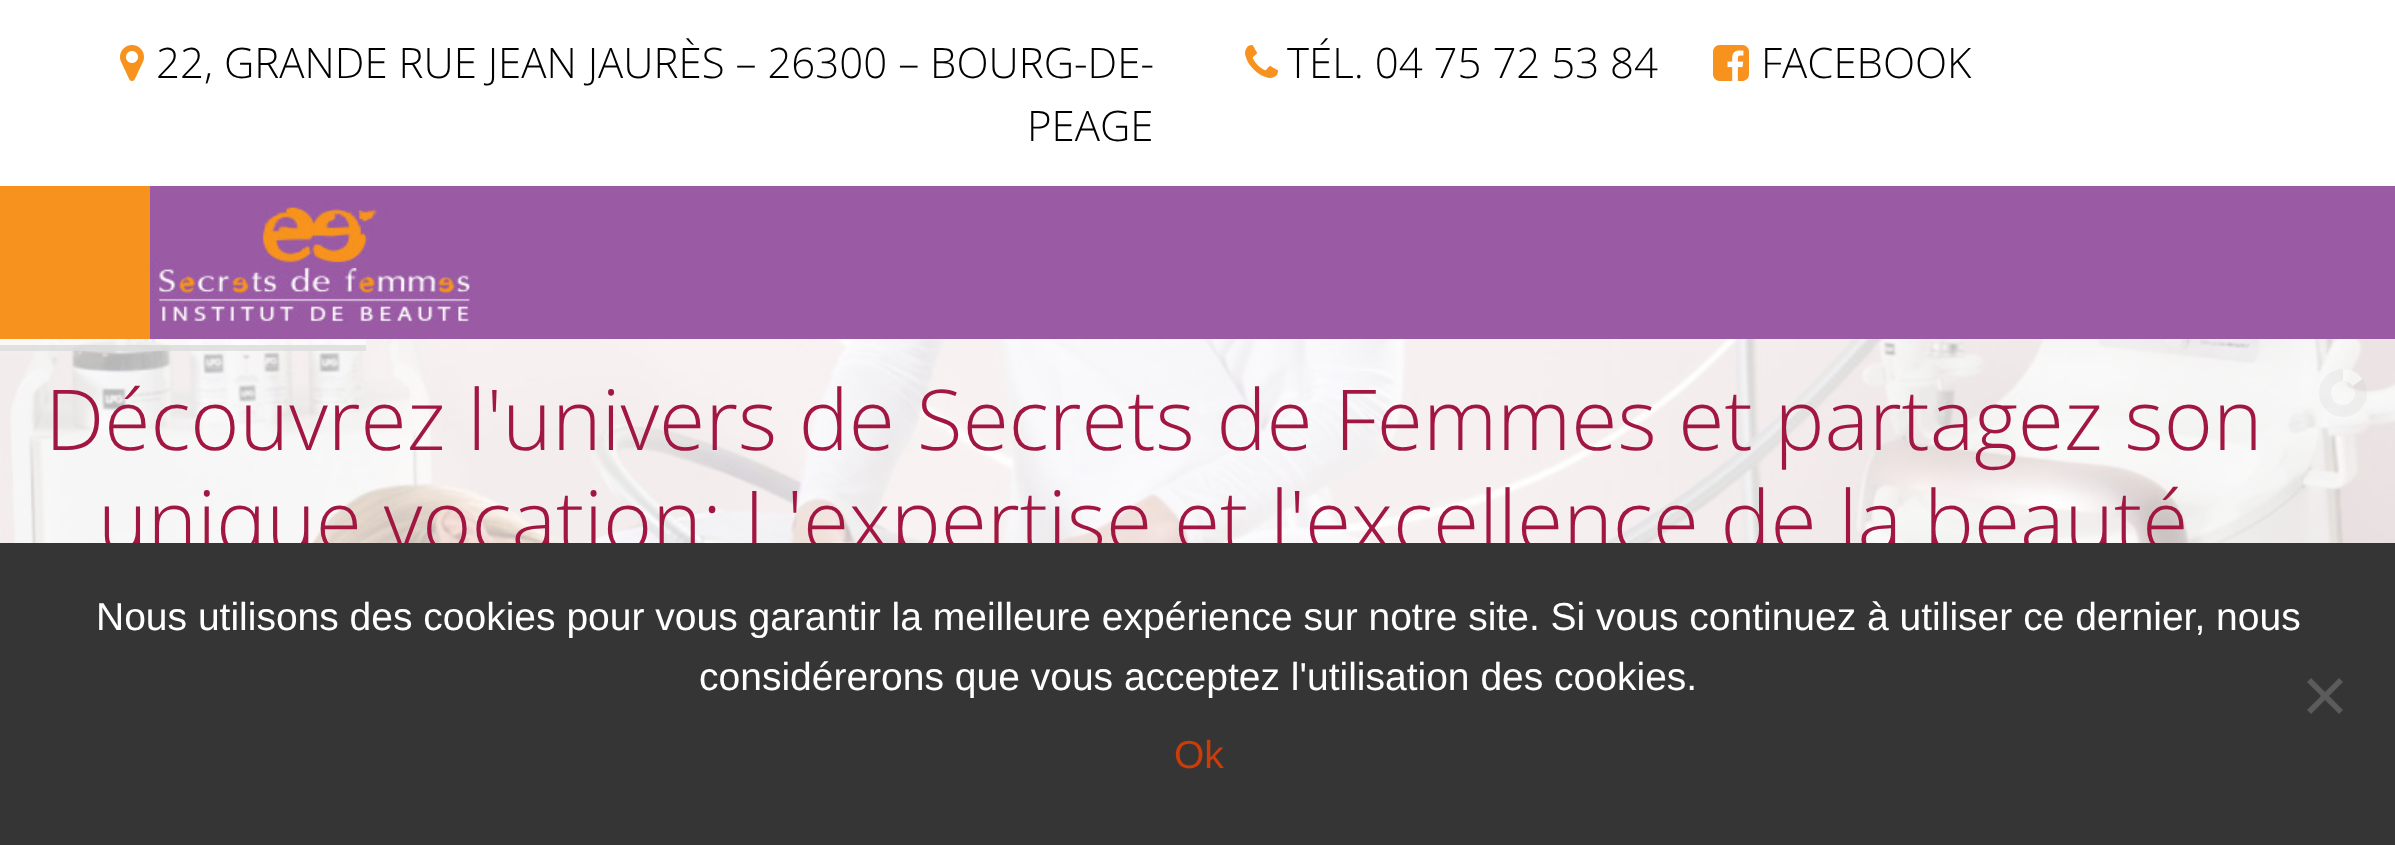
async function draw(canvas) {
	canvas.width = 2395;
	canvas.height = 845;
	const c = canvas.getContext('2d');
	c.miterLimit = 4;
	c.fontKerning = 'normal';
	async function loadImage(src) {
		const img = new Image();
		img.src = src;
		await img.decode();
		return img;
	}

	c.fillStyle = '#fff';
	c.fillRect(0, 0, 2395, 845);
	c.drawImage(await loadImage('img1.png'), 120, 45, 24, 36);
	c.font = '300 42px Open Sans';
	c.fillStyle = '#000';
	c.fillText('22, GRANDE RUE JEAN JAURÈS – 26300 – BOURG-DE-', 156, 78);
	c.fillText('PEAGE', 1027, 141);
	c.drawImage(await loadImage('img2.png'), 1245, 45, 33, 33);
	c.fillText('TÉL. 04 75 72 53 84', 1287, 78);
	c.drawImage(await loadImage('img3.png'), 1713, 45, 36, 36);
	c.fillText('FACEBOOK', 1761, 78);
	c.fillStyle = '#9a5aa4';
	c.fillRect(150, 186, 2245, 153);
	c.fillStyle = '#f7921e';
	c.fillRect(0, 186, 150, 153);
	c.drawImage(await loadImage('img4.png'), 150, 199, 322, 124);
	c.drawImage(await loadImage('img5.png'), 0, 339, 2395, 204);
	c.fillStyle = '#ffffff8c';
	c.fillRect(0, 339, 366, 12);
	c.fillStyle = '#5555558c';
	c.fillRect(0, 345, 366, 6);
	c.beginPath();
	c.arc(2343, 393, 18, 0, 2 * Math.PI);
	c.strokeStyle = '#00000021';
	c.lineWidth = 12;
	c.stroke();
	c.save();
	c.beginPath();
	c.rect(2343, 369, 24, 48);
	c.clip();
	c.beginPath();
	c.moveTo(2349, 359.5);
	c.lineTo(2362.5, 379);
	c.lineTo(2323.5, 407);
	c.lineTo(2309.5, 387);
	c.closePath();
	c.clip();
	c.beginPath();
	c.moveTo(2357.5, 382.5);
	c.bezierCurveTo(2371.5, 402, 2342, 422.5, 2328.5, 403.5);
	c.bezierCurveTo(2314.5, 384, 2344, 363.5, 2357.5, 382.5);
	c.closePath();
	c.strokeStyle = '#ffffffa6';
	c.stroke();
	c.restore();
	c.fillStyle = '#ffffffb3';
	c.fillRect(0, 339, 2395, 204);
	c.font = '300 84px Open Sans';
	c.fillStyle = '#a11741';
	c.fillText('Découvrez l\'univers de Secrets de Femmes et partagez son', 45, 450);
	c.fillText('unique vocation: L\'expertise et l\'excellence de la beauté', 98, 551);
	c.fillStyle = '#353535';
	c.fillRect(0, 543, 2395, 302);
	c.font = '39px Liberation Sans';
	c.fillStyle = '#fff';
	c.fillText('Nous utilisons des cookies pour vous garantir la meilleure expérience sur notre site. Si vous continuez à utiliser ce dernier, nous', 96, 630);
	c.fillText('considérerons que vous acceptez l\'utilisation des cookies.', 699, 690);
	c.fillStyle = '#5b5b5b';
	c.beginPath();
	c.moveTo(2339, 678);
	c.lineTo(2343, 682);
	c.lineTo(2311, 714);
	c.lineTo(2307, 710);
	c.closePath();
	c.fill();
	c.beginPath();
	c.moveTo(2307, 682);
	c.lineTo(2311, 678);
	c.lineTo(2343, 710);
	c.lineTo(2339, 714);
	c.closePath();
	c.fill();
	c.fillStyle = '#ca3c08';
	c.fillText('Ok', 1174, 768);
}

draw(document.querySelector('canvas'));
